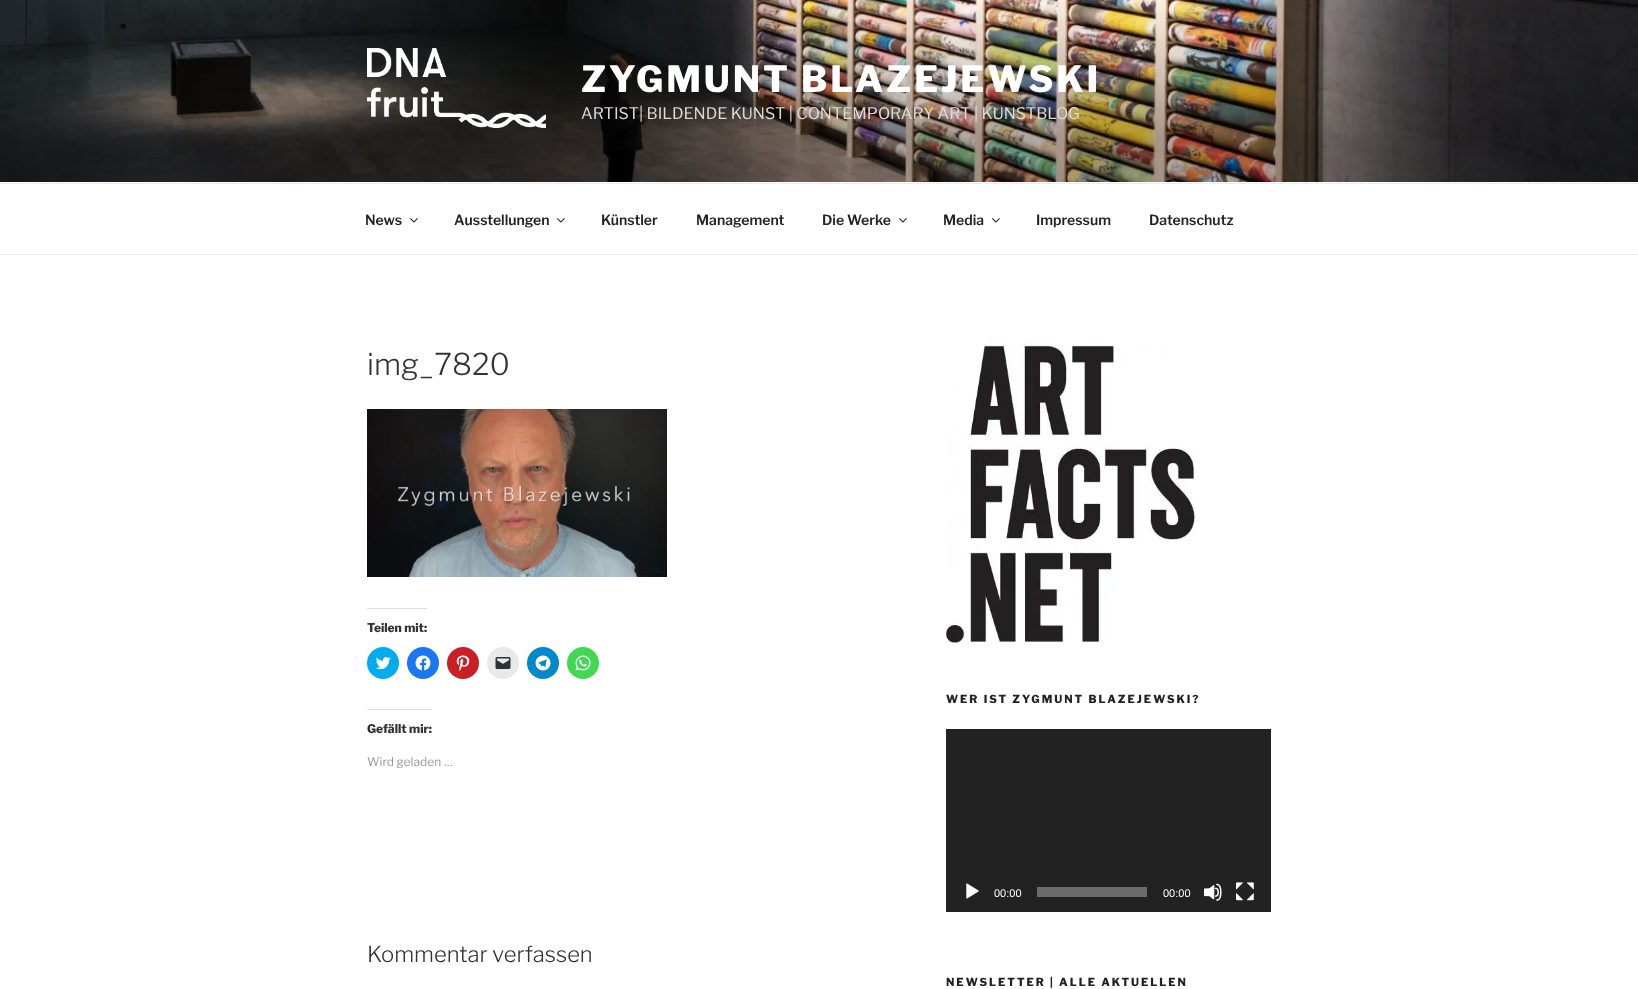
async function draw(canvas) {
	canvas.width = 1638;
	canvas.height = 989;
	const c = canvas.getContext('2d');
	c.miterLimit = 4;
	c.fontKerning = 'normal';
	async function loadImage(src) {
		const img = new Image();
		img.src = src;
		await img.decode();
		return img;
	}

	c.fillStyle = '#fff';
	c.fillRect(0, 0, 1638, 989);
	c.fillStyle = '#fafafa';
	c.fillRect(0, 182, 1638, 1);
	c.drawImage(await loadImage('img1.png'), 0, 0, 1638, 182);
	c.drawImage(await loadImage('img2.png'), 367, 48, 179, 80);
	c.letterSpacing = '2.9px';
	c.font = '100 36px "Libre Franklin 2"';
	c.fillStyle = '#fff';
	c.fillText('ZYGMUNT BLAZEJEWSKI', 581, 92);
	c.letterSpacing = '0px';
	c.font = '100 16px "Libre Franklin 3"';
	c.fillStyle = '#dcdad8';
	c.fillText('ARTIST| BILDENDE KUNST | CONTEMPORARY ART | KUNSTBLOG', 581, 119);
	c.fillStyle = '#eee';
	c.fillRect(0, 183, 1638, 1);
	c.fillRect(0, 254, 1638, 1);
	c.font = '100 14px "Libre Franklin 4"';
	c.fillStyle = '#222';
	c.fillText('News', 365, 225);
	c.drawImage(await loadImage('img3.png'), 410, 218, 8, 5);
	c.fillText('Ausstellungen', 454, 225);
	c.drawImage(await loadImage('img3.png'), 557, 218, 8, 5);
	for (const [text, x, y] of [
		['Künstler', 601, 225],
		['Management', 696, 225],
		['Die Werke', 822, 225],
	]) {
		c.fillText(text, x, y);
	}
	c.drawImage(await loadImage('img3.png'), 899, 218, 8, 5);
	c.fillText('Media', 943, 225);
	c.drawImage(await loadImage('img3.png'), 992, 218, 8, 5);
	c.fillText('Impressum', 1036, 225);
	c.fillText('Datenschutz', 1149, 225);
	c.font = '100 30px Libre Franklin';
	c.fillStyle = '#333';
	c.fillText('img_7820', 367, 375);
	c.drawImage(await loadImage('img4.png'), 367, 409, 300, 168);
	c.fillStyle = '#dcdcde';
	c.fillRect(367, 608, 60, 1);
	c.font = '100 12px "Libre Franklin 2"';
	c.fillStyle = '#333';
	c.fillText('Teilen mit:', 367, 632);
	c.fillStyle = '#00acee';
	c.beginPath();
	c.arc(383, 663, 16, 0, 2 * Math.PI);
	c.fill();
	c.drawImage(await loadImage('img5.png'), 375, 657, 16, 13);
	c.fillStyle = '#1877f2';
	c.beginPath();
	c.arc(423, 663, 16, 0, 2 * Math.PI);
	c.fill();
	c.drawImage(await loadImage('img6.png'), 415, 655, 16, 16);
	c.fillStyle = '#ca1f27';
	c.beginPath();
	c.arc(463, 663, 16, 0, 2 * Math.PI);
	c.fill();
	c.drawImage(await loadImage('img7.png'), 456, 655, 14, 16);
	c.fillStyle = '#e9e9e9';
	c.beginPath();
	c.arc(503, 663, 16, 0, 2 * Math.PI);
	c.fill();
	c.drawImage(await loadImage('img8.png'), 495, 657, 16, 12);
	c.fillStyle = '#08c';
	c.beginPath();
	c.arc(543, 663, 16, 0, 2 * Math.PI);
	c.fill();
	c.drawImage(await loadImage('img9.png'), 535, 655, 16, 16);
	c.fillStyle = '#43d854';
	c.beginPath();
	c.arc(583, 663, 16, 0, 2 * Math.PI);
	c.fill();
	c.drawImage(await loadImage('img10.png'), 575, 655, 16, 16);
	c.fillStyle = '#dcdcde';
	c.fillRect(367, 709, 65, 1);
	c.fillStyle = '#333';
	c.fillText('Gefällt mir:', 367, 733);
	c.font = '100 12px "Libre Franklin 3"';
	c.fillStyle = '#999';
	c.fillText('Wird geladen …', 367, 766);
	c.font = '100 22px Libre Franklin';
	c.fillStyle = '#333';
	c.fillText('Kommentar verfassen', 367, 962);
	c.drawImage(await loadImage('img11.png'), 946, 343, 250, 300);
	c.letterSpacing = '2px';
	c.font = '100 11px "Libre Franklin 2"';
	c.fillStyle = '#222';
	c.fillText('WER IST ZYGMUNT BLAZEJEWSKI?', 946, 703);
	c.fillRect(946, 729, 325, 183);
	c.drawImage(await loadImage('img12.png'), 966, 883, 13, 16);
	c.letterSpacing = '0px';
	c.font = '11px Liberation Sans';
	c.fillStyle = '#fff';
	c.fillText('00:00', 994, 897);
	c.fillStyle = '#6b6b6b';
	c.fillRect(1037, 887, 110, 10);
	c.fillStyle = '#fff';
	c.fillText('00:00', 1163, 897);
	c.drawImage(await loadImage('img13.png'), 1204, 883, 18, 18);
	c.drawImage(await loadImage('img14.png'), 1236, 882, 18, 19);
	c.letterSpacing = '2px';
	c.font = '100 11px "Libre Franklin 2"';
	c.fillStyle = '#222';
	c.fillText('NEWSLETTER | ALLE AKTUELLEN', 946, 986);
}

draw(document.querySelector('canvas'));
